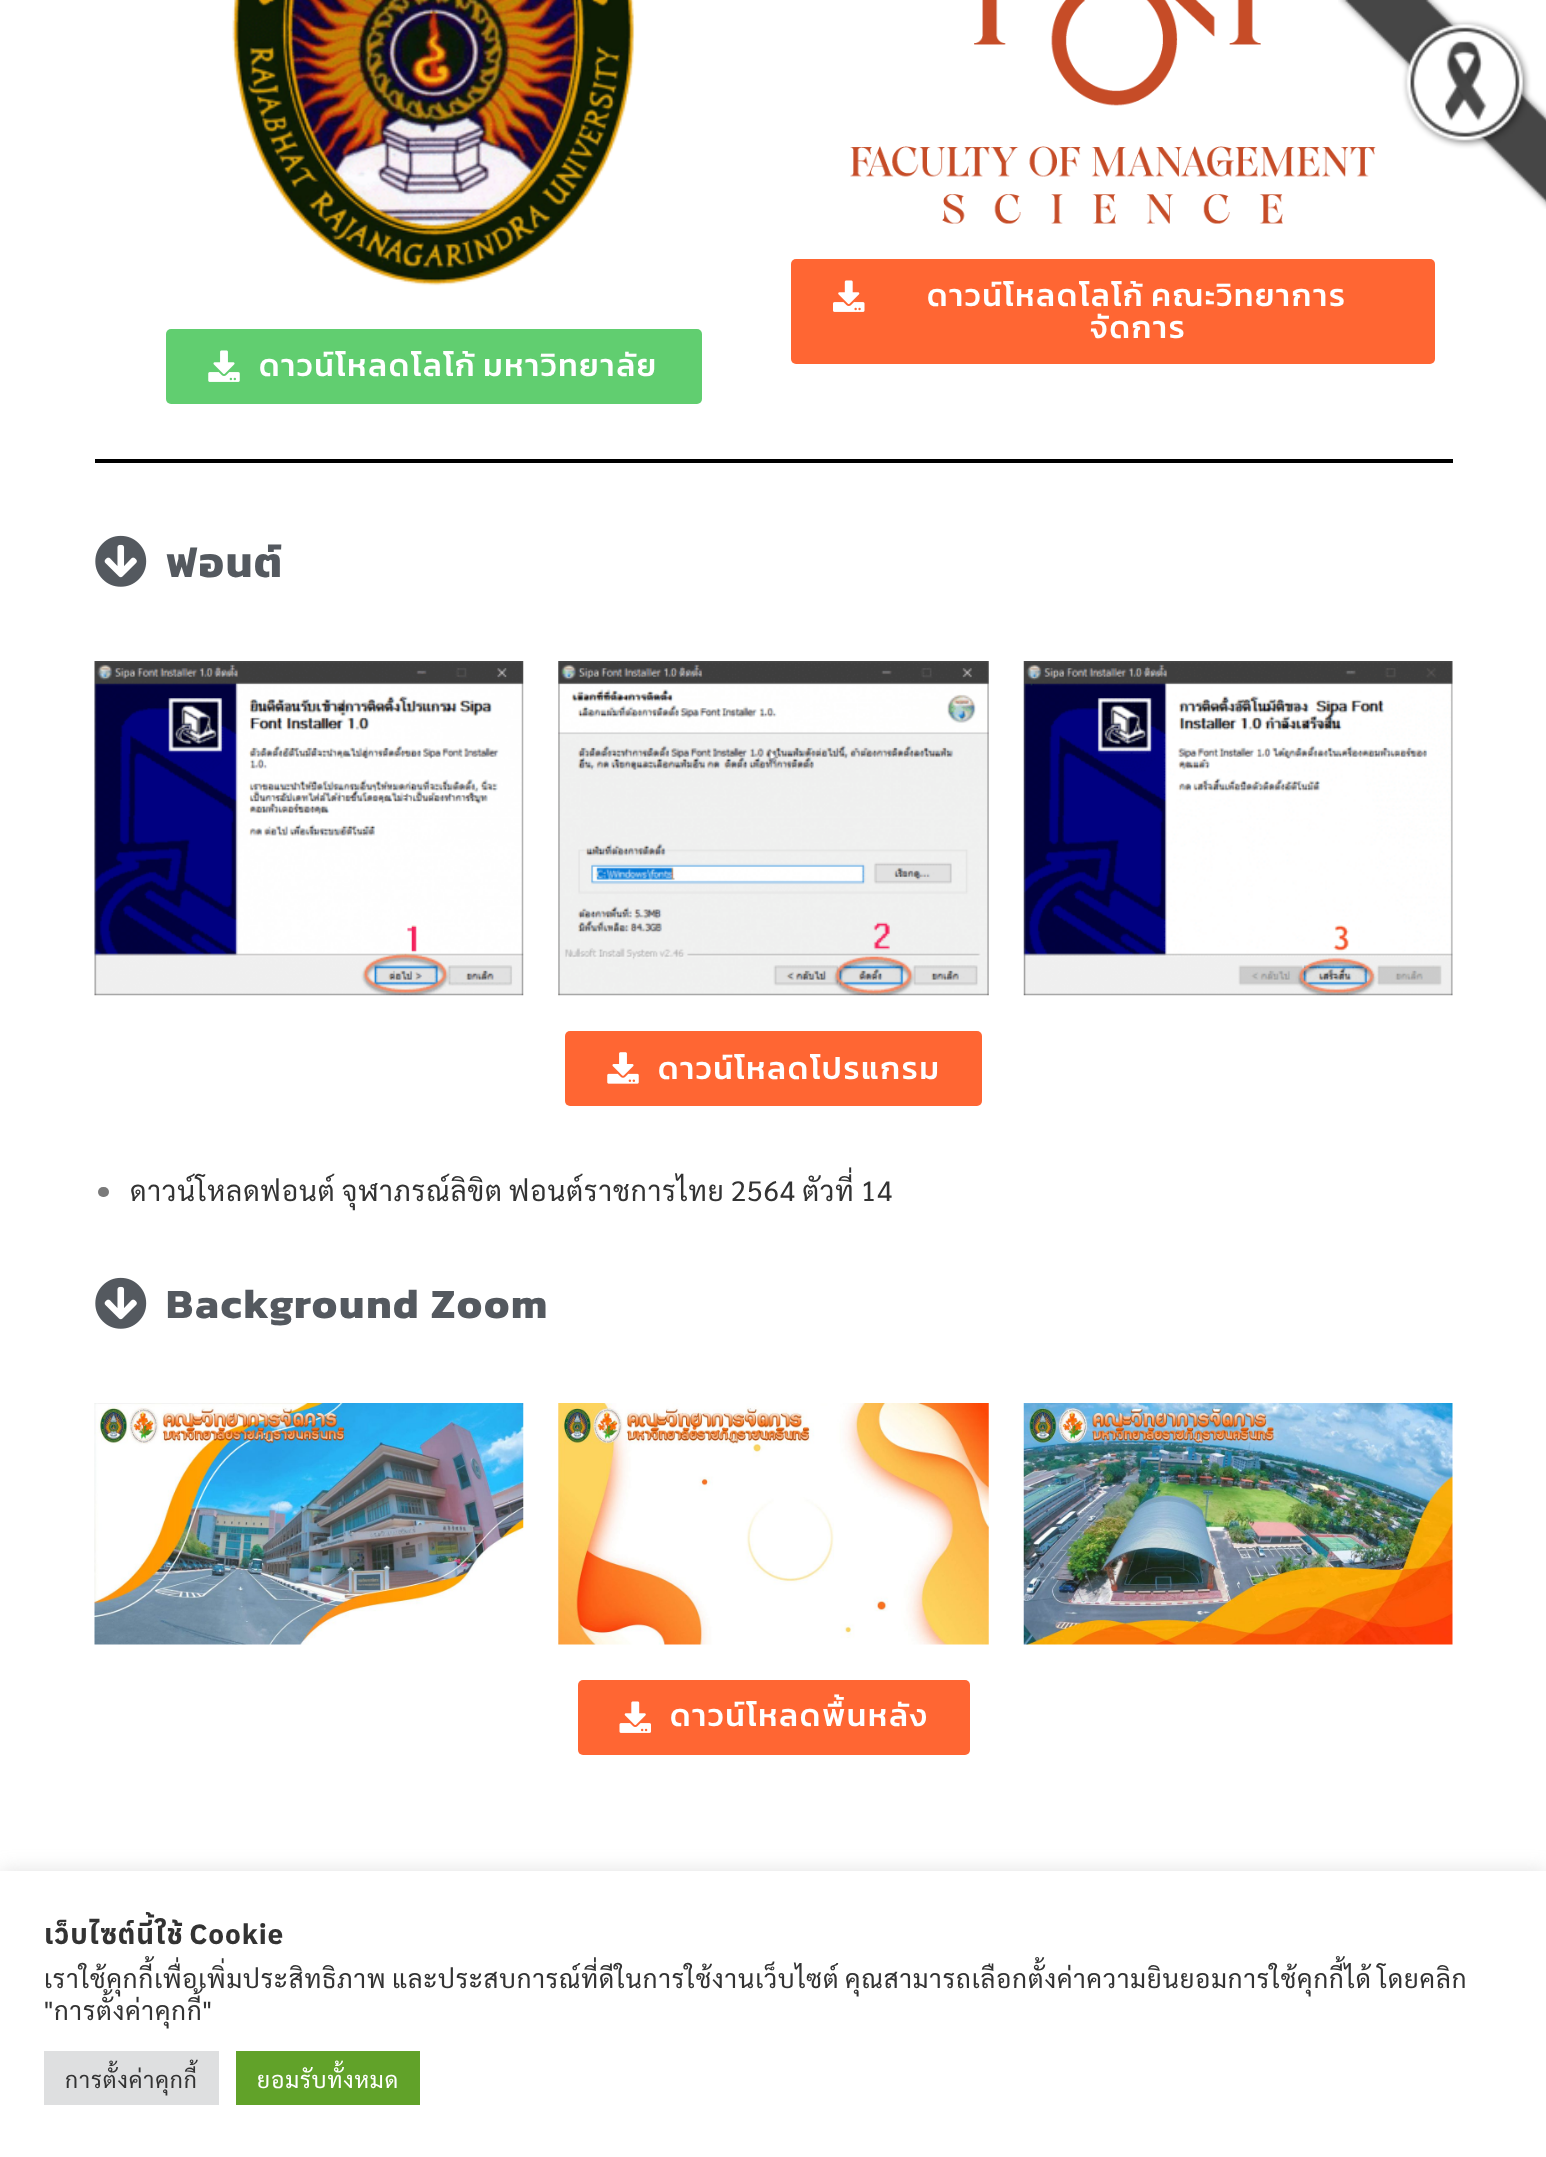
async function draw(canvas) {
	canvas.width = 1546;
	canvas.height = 2157;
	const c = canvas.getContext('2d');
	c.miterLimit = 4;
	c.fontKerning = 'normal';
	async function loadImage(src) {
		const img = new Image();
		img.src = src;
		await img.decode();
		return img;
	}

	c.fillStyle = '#fff';
	c.fillRect(0, 0, 1546, 2157);
	c.drawImage(await loadImage('img2.png'), 850, 0, 526, 224);
	c.drawImage(await loadImage('img1.png'), 1338, 0, 208, 209);
	c.fillStyle = '#f63';
	c.beginPath();
	c.roundRect(791, 259, 644, 105, 5);
	c.fill();
	c.drawImage(await loadImage('img3.png'), 833, 280, 32, 32);
	c.letterSpacing = '1.75px';
	c.wordSpacing = '-2px';
	c.font = '500 31.5px Kanit';
	c.fillStyle = '#fff';
	c.fillText('ดาวน์โหลดโลโก้ คณะวิทยาการ', 927, 306);
	c.wordSpacing = '0px';
	c.fillText('จัดการ', 1090, 338);
	c.drawImage(await loadImage('img4.png'), 232, 0, 403, 286);
	c.fillStyle = '#61ce70';
	c.beginPath();
	c.roundRect(166, 329, 536, 75, 5);
	c.fill();
	c.drawImage(await loadImage('img5.png'), 208, 350, 32, 32);
	c.wordSpacing = '-2px';
	c.fillStyle = '#fff';
	c.fillText('ดาวน์โหลดโลโก้ มหาวิทยาลัย', 259, 376);
	c.fillStyle = '#000';
	c.fillRect(95, 459, 1358, 4);
	c.drawImage(await loadImage('img6.png'), 95, 535, 52, 52);
	c.wordSpacing = '0px';
	c.font = 'bold 42px Kanit';
	c.fillStyle = '#54595f';
	c.fillText('ฟอนต์', 166, 577);
	c.drawImage(await loadImage('img7.png'), 94, 661, 430, 335);
	c.drawImage(await loadImage('img8.png'), 558, 661, 431, 335);
	c.drawImage(await loadImage('img9.png'), 1023, 661, 430, 335);
	c.fillStyle = '#f63';
	c.beginPath();
	c.roundRect(565, 1031, 417, 75, 5);
	c.fill();
	c.drawImage(await loadImage('img10.png'), 607, 1052, 32, 32);
	c.font = '500 31.5px Kanit';
	c.fillStyle = '#fff';
	c.fillText('ดาวน์โหลดโปรแกรม', 658, 1079);
	c.fillStyle = '#7a7a7a';
	c.beginPath();
	c.roundRect(98, 1187, 11, 10, 5);
	c.fill();
	c.letterSpacing = '0.88px';
	c.wordSpacing = '-1.5px';
	c.font = '28px Sarabun';
	c.fillStyle = '#333';
	c.fillText('ดาวน์โหลดฟอนต์ จุฬาภรณ์ลิขิต ฟอนต์ราชการไทย 2564 ตัวที่ 14', 130, 1201);
	c.drawImage(await loadImage('img6.png'), 95, 1277, 52, 52);
	c.letterSpacing = '1.75px';
	c.wordSpacing = '0px';
	c.font = 'bold 42px Kanit';
	c.fillStyle = '#54595f';
	c.fillText('Background Zoom', 166, 1318);
	c.drawImage(await loadImage('img11.png'), 94, 1403, 430, 242);
	c.drawImage(await loadImage('img12.png'), 558, 1403, 431, 242);
	c.drawImage(await loadImage('img13.png'), 1023, 1403, 430, 242);
	c.fillStyle = '#f63';
	c.beginPath();
	c.roundRect(578, 1680, 392, 75, 5);
	c.fill();
	c.drawImage(await loadImage('img14.png'), 619, 1701, 32, 32);
	c.font = '500 31.5px Kanit';
	c.fillStyle = '#fff';
	c.fillText('ดาวน์โหลดพื้นหลัง', 670, 1726);
	c.fillStyle = '#acabab4d';
	c.filter = 'blur(9px)';
	c.beginPath();
	c.rect(0, 1869, 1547, 287);
	c.fill();
	c.filter = 'none';
	c.fillStyle = '#fff';
	c.fillRect(0, 1871, 1546, 286);
	c.letterSpacing = '0.88px';
	c.wordSpacing = '-1.5px';
	c.font = 'bold 28px anuphan';
	c.fillStyle = '#333';
	c.fillText('เว็บไซต์นี้ใช้ Cookie', 44, 1944);
	c.font = '25.67px Sarabun';
	c.fillText('เราใช้คุกกี้เพื่อเพิ่มประสิทธิภาพ และประสบการณ์ที่ดีในการใช้งานเว็บไซต์ คุณสามารถเลือกตั้งค่าความยินยอมการใช้คุกกี้ได้ โดยคลิก', 44, 1988);
	c.wordSpacing = '0px';
	c.fillText('"การตั้งค่าคุกกี้"', 44, 2020);
	c.fillStyle = '#dedfe0';
	c.fillRect(44, 2051, 175, 54);
	c.font = '22.75px Sarabun';
	c.fillStyle = '#333';
	c.fillText('การตั้งค่าคุกกี้', 65, 2088);
	c.fillStyle = '#61a229';
	c.fillRect(236, 2051, 184, 54);
	c.fillStyle = '#fff';
	c.fillText('ยอมรับทั้งหมด', 257, 2088);
}

draw(document.querySelector('canvas'));
